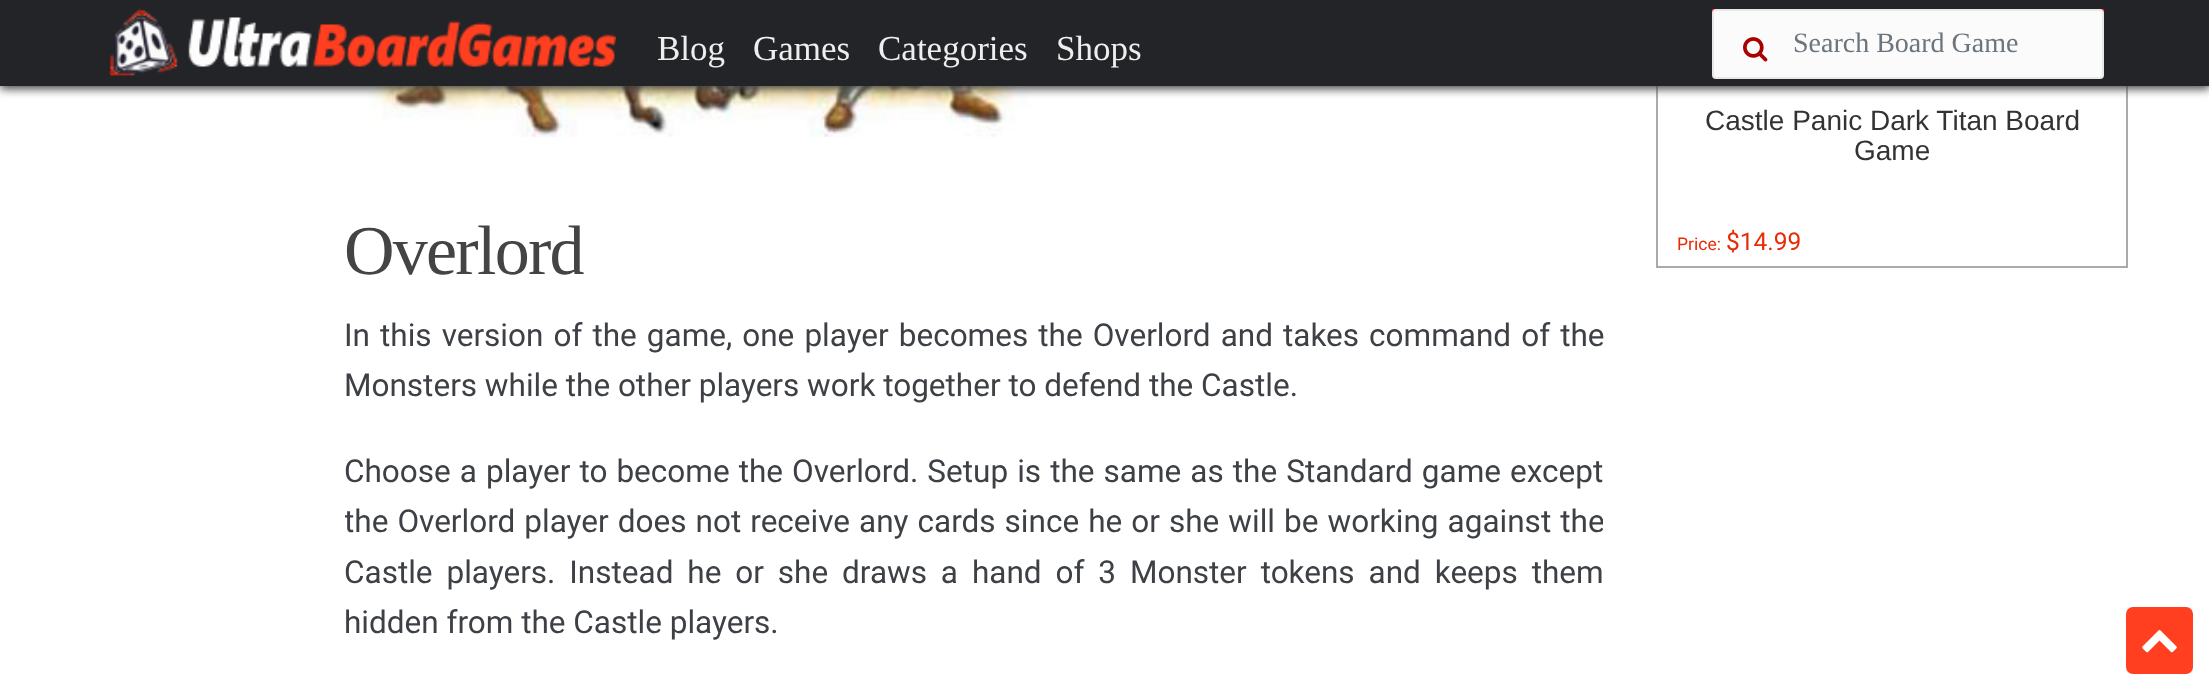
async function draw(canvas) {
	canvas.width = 2209;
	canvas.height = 691;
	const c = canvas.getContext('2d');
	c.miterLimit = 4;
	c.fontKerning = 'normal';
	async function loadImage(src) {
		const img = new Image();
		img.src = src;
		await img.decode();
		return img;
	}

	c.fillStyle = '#fff';
	c.fillRect(0, 0, 2209, 691);
	c.strokeStyle = '#aaa';
	c.lineWidth = 2;
	c.strokeRect(1657, -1, 470, 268);
	c.drawImage(await loadImage('img3.png'), 367, 86, 668, 51);
	c.fillStyle = '#444';
	c.filter = 'blur(5px)';
	c.beginPath();
	c.rect(0, 4, 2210, 85);
	c.fill();
	c.filter = 'none';
	c.fillStyle = '#232428';
	c.fillRect(0, 0, 2209, 86);
	c.drawImage(await loadImage('img1.png'), 108, 8, 508, 69);
	c.font = '35px Liberation Serif';
	c.fillStyle = '#eee';
	for (const [text, x, y] of [
		['Blog', 657, 60],
		['Games', 753, 60],
		['Categories', 878, 60],
		['Shops', 1056, 60],
	]) {
		c.fillText(text, x, y);
	}
	c.fillStyle = '#f00';
	c.fillRect(1712, 9, 392, 4);
	c.fillStyle = '#fbfbfb';
	c.beginPath();
	c.roundRect(1713, 10, 390, 68, 3);
	c.fill();
	c.strokeStyle = '#e8e8e8';
	c.stroke();
	c.drawImage(await loadImage('img2.png'), 1743, 37, 25, 25);
	c.font = '28px Liberation Serif';
	c.fillStyle = '#6c757d';
	c.fillText('Search Board Game', 1793, 52);
	c.font = '28px Liberation Sans';
	c.fillStyle = '#333';
	c.fillText('Castle Panic Dark Titan Board', 1705, 130);
	c.fillText('Game', 1854, 160);
	c.font = '17.5px Roboto';
	c.fillStyle = '#e82b09';
	c.fillText('Price:', 1677, 250);
	c.font = '24.5px Roboto';
	c.fillText('$14.99', 1726, 250);
	c.letterSpacing = '-1.75px';
	c.font = '70px Liberation Serif';
	c.fillStyle = '#444';
	c.fillText('Overlord', 344, 274);
	c.letterSpacing = '0px';
	c.wordSpacing = '2.25px';
	c.font = '31.5px Roboto';
	c.fillStyle = '#3d4045';
	c.fillText('In this version of the game, one player becomes the Overlord and takes command of the', 344, 346);
	c.wordSpacing = '0px';
	c.fillText('Monsters while the other players work together to defend the Castle.', 344, 396);
	c.wordSpacing = '1.25px';
	c.fillText('Choose a player to become the Overlord. Setup is the same as the Standard game except', 344, 482);
	c.save();
	c.beginPath();
	c.rect(345, 0, 1258, 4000);
	c.clip();
	c.fillText('the Overlord player does not receive any cards since he or she will be working against the', 344, 532);
	c.restore();
	c.wordSpacing = '6.1px';
	c.fillText('Castle players. Instead he or she draws a hand of 3 Monster tokens and keeps them', 344, 583);
	c.wordSpacing = '0px';
	c.fillText('hidden from the Castle players.', 344, 633);
	c.fillStyle = '#ff3f20';
	c.beginPath();
	c.roundRect(2126, 607, 67, 67, 7);
	c.fill();
	c.drawImage(await loadImage('img4.png'), 2142, 630, 35, 23);
}

draw(document.querySelector('canvas'));
